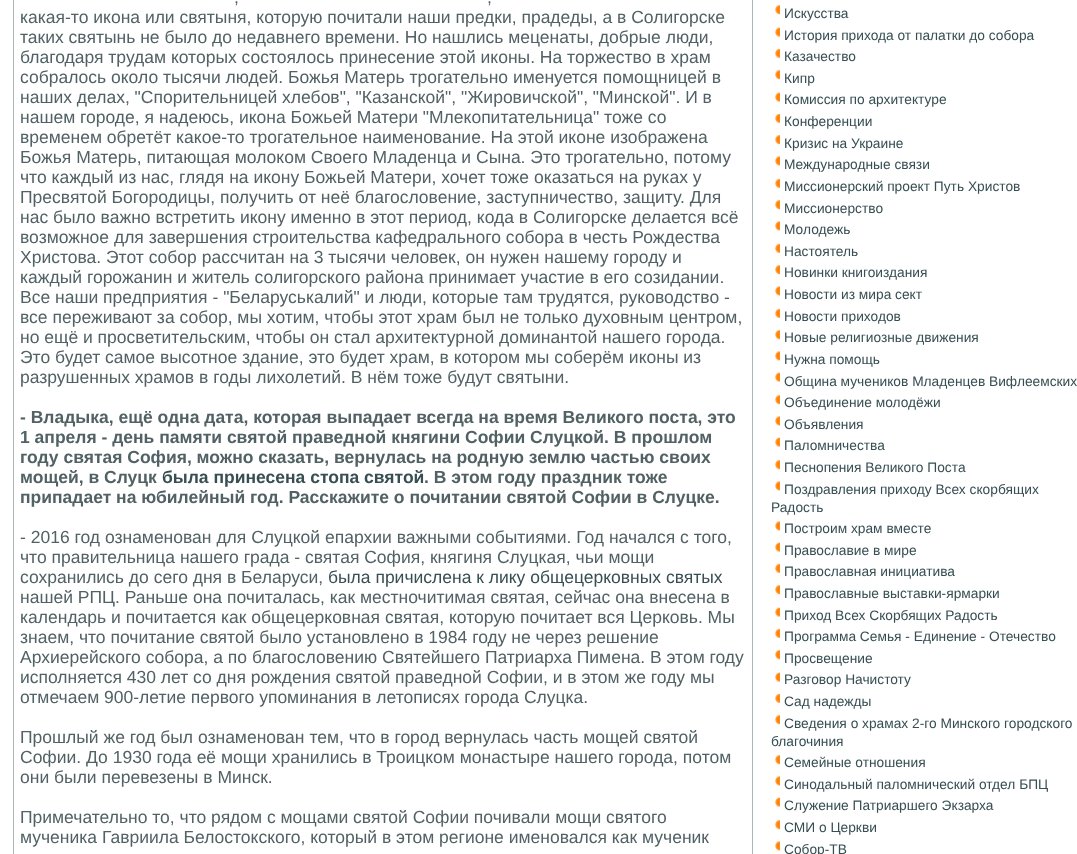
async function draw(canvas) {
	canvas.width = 1077;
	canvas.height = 854;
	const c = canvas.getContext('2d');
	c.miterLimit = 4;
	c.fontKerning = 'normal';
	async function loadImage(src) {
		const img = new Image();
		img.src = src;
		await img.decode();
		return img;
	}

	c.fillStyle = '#fff';
	c.fillRect(0, 0, 1077, 854);
	c.strokeStyle = '#a8b8bc';
	c.strokeRect(13.5, -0.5, 739, 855);
	c.font = '17.5px Liberation Sans';
	c.fillStyle = '#516164';
	for (const [text, x, y] of [
		[',', 234, 3],
		[',', 487, 3],
		['какая-то икона или святыня, которую почитали наши предки, прадеды, а в Солигорске', 20, 23],
		['таких святынь не было до недавнего времени. Но нашлись меценаты, добрые люди,', 20, 43],
		['благодаря трудам которых состоялось принесение этой иконы. На торжество в храм', 20, 63],
		['собралось около тысячи людей. Божья Матерь трогательно именуется помощницей в', 20, 83],
		['наших делах, "Спорительницей хлебов", "Казанской", "Жировичской", "Минской". И в', 20, 103],
		['нашем городе, я надеюсь, икона Божьей Матери "Млекопитательница" тоже со', 20, 123],
		['временем обретёт какое-то трогательное наименование. На этой иконе изображена', 20, 143],
		['Божья Матерь, питающая молоком Своего Младенца и Сына. Это трогательно, потому', 20, 163],
		['что каждый из нас, глядя на икону Божьей Матери, хочет тоже оказаться на руках у', 20, 183],
		['Пресвятой Богородицы, получить от неё благословение, заступничество, защиту. Для', 20, 203],
		['нас было важно встретить икону именно в этот период, кода в Солигорске делается всё', 20, 223],
		['возможное для завершения строительства кафедрального собора в честь Рождества', 20, 243],
		['Христова. Этот собор рассчитан на 3 тысячи человек, он нужен нашему городу и', 20, 263],
		['каждый горожанин и житель солигорского района принимает участие в его созидании.', 20, 283],
		['Все наши предприятия - "Беларуськалий" и люди, которые там трудятся, руководство -', 20, 303],
		['все переживают за собор, мы хотим, чтобы этот храм был не только духовным центром,', 20, 323],
		['но ещё и просветительским, чтобы он стал архитектурной доминантой нашего города.', 20, 343],
		['Это будет самое высотное здание, это будет храм, в котором мы соберём иконы из', 20, 363],
		['разрушенных храмов в годы лихолетий. В нём тоже будут святыни.', 20, 383],
	]) {
		c.fillText(text, x, y);
	}
	c.font = 'bold 17.5px Liberation Sans';
	for (const [text, x, y] of [
		['- Владыка, ещё одна дата, которая выпадает всегда на время Великого поста, это', 20, 423],
		['1 апреля - день памяти святой праведной княгини Софии Слуцкой. В прошлом', 20, 443],
		['году святая София, можно сказать, вернулась на родную землю частью своих', 20, 463],
		['мощей, в Слуцк', 20, 483],
	]) {
		c.fillText(text, x, y);
	}
	c.fillStyle = '#374e52';
	c.fillText('была принесена стопа святой', 162, 483);
	c.fillStyle = '#516164';
	c.fillText('. В этом году праздник тоже', 424, 483);
	c.fillText('припадает на юбилейный год. Расскажите о почитании святой Софии в Слуцке.', 20, 503);
	c.font = '17.5px Liberation Sans';
	for (const [text, x, y] of [
		['- 2016 год ознаменован для Слуцкой епархии важными событиями. Год начался с того,', 20, 543],
		['что правительница нашего града - святая София, княгиня Слуцкая, чьи мощи', 20, 563],
		['сохранились до сего дня в Беларуси,', 20, 583],
	]) {
		c.fillText(text, x, y);
	}
	c.fillStyle = '#374e52';
	c.fillText('была причислена к лику общецерковных святых', 328, 583);
	c.fillStyle = '#516164';
	for (const [text, x, y] of [
		['нашей РПЦ. Раньше она почиталась, как местночитимая святая, сейчас она внесена в', 20, 603],
		['календарь и почитается как общецерковная святая, которую почитает вся Церковь. Мы', 20, 623],
		['знаем, что почитание святой было установлено в 1984 году не через решение', 20, 643],
		['Архиерейского собора, а по благословению Святейшего Патриарха Пимена. В этом году', 20, 663],
		['исполняется 430 лет со дня рождения святой праведной Софии, и в этом же году мы', 20, 683],
		['отмечаем 900-летие первого упоминания в летописях города Слуцка.', 20, 703],
		['Прошлый же год был ознаменован тем, что в город вернулась часть мощей святой', 20, 743],
		['Софии. До 1930 года её мощи хранились в Троицком монастыре нашего города, потом', 20, 763],
		['они были перевезены в Минск.', 20, 783],
		['Примечательно то, что рядом с мощами святой Софии почивали мощи святого', 20, 823],
		['мученика Гавриила Белостокского, который в этом регионе именовался как мученик', 20, 843],
	]) {
		c.fillText(text, x, y);
	}
	c.drawImage(await loadImage('img1.png'), 774, 5, 6, 10);
	c.font = '13.75px Liberation Sans';
	c.fillStyle = '#374e52';
	c.fillText('Искусства', 784, 18);
	c.drawImage(await loadImage('img2.png'), 774, 27, 6, 10);
	c.fillText('История прихода от палатки до собора', 784, 40);
	c.drawImage(await loadImage('img3.png'), 774, 48, 6, 10);
	c.fillText('Казачество', 784, 61);
	c.drawImage(await loadImage('img1.png'), 774, 70, 6, 10);
	c.fillText('Кипр', 784, 83);
	c.drawImage(await loadImage('img2.png'), 774, 92, 6, 10);
	c.fillText('Комиссия по архитектуре', 784, 104);
	c.drawImage(await loadImage('img3.png'), 774, 113, 6, 10);
	c.fillText('Конференции', 784, 126);
	c.drawImage(await loadImage('img4.png'), 774, 135, 6, 10);
	c.fillText('Кризис на Украине', 784, 148);
	c.drawImage(await loadImage('img5.png'), 774, 156, 6, 10);
	c.fillText('Международные связи', 784, 169);
	c.drawImage(await loadImage('img3.png'), 774, 178, 6, 10);
	c.fillText('Миссионерский проект Путь Христов', 784, 191);
	c.drawImage(await loadImage('img1.png'), 774, 200, 6, 10);
	c.fillText('Миссионерство', 784, 213);
	c.drawImage(await loadImage('img5.png'), 774, 221, 6, 10);
	c.fillText('Молодежь', 784, 234);
	c.drawImage(await loadImage('img3.png'), 774, 243, 6, 10);
	c.fillText('Настоятель', 784, 256);
	c.drawImage(await loadImage('img1.png'), 774, 265, 6, 10);
	c.fillText('Новинки книгоиздания', 784, 277);
	c.drawImage(await loadImage('img6.png'), 774, 286, 6, 10);
	c.fillText('Новости из мира сект', 784, 299);
	c.drawImage(await loadImage('img3.png'), 774, 308, 6, 10);
	c.fillText('Новости приходов', 784, 321);
	c.drawImage(await loadImage('img1.png'), 774, 330, 6, 10);
	c.fillText('Новые религиозные движения', 784, 342);
	c.drawImage(await loadImage('img5.png'), 774, 351, 6, 10);
	c.fillText('Нужна помощь', 784, 364);
	c.drawImage(await loadImage('img2.png'), 774, 372, 6, 10);
	c.fillText('Община мучеников Младенцев Вифлеемских', 784, 386);
	c.drawImage(await loadImage('img1.png'), 774, 395, 6, 10);
	c.fillText('Объединение молодёжи', 784, 407);
	c.drawImage(await loadImage('img5.png'), 774, 416, 6, 10);
	c.fillText('Объявления', 784, 429);
	c.drawImage(await loadImage('img2.png'), 774, 437, 6, 10);
	c.fillText('Паломничества', 784, 450);
	c.drawImage(await loadImage('img1.png'), 774, 460, 6, 10);
	c.fillText('Песнопения Великого Поста', 784, 472);
	c.drawImage(await loadImage('img5.png'), 774, 481, 6, 10);
	c.fillText('Поздравления приходу Всех скорбящих', 784, 494);
	c.fillText('Радость', 771, 512);
	c.drawImage(await loadImage('img5.png'), 774, 521, 6, 10);
	c.fillText('Построим храм вместе', 784, 533);
	c.drawImage(await loadImage('img2.png'), 774, 542, 6, 10);
	c.fillText('Православие в мире', 784, 555);
	c.drawImage(await loadImage('img3.png'), 774, 563, 6, 10);
	c.fillText('Православная инициатива', 784, 576);
	c.drawImage(await loadImage('img1.png'), 774, 585, 6, 10);
	c.fillText('Православные выставки-ярмарки', 784, 598);
	c.drawImage(await loadImage('img2.png'), 774, 607, 6, 10);
	c.fillText('Приход Всех Скорбящих Радость', 784, 620);
	c.drawImage(await loadImage('img3.png'), 774, 628, 6, 10);
	c.fillText('Программа Семья - Единение - Отечество', 784, 641);
	c.drawImage(await loadImage('img1.png'), 774, 650, 6, 10);
	c.fillText('Просвещение', 784, 663);
	c.drawImage(await loadImage('img7.png'), 774, 672, 6, 10);
	c.fillText('Разговор Начистоту', 784, 684);
	c.drawImage(await loadImage('img3.png'), 774, 693, 6, 10);
	c.fillText('Сад надежды', 784, 706);
	c.drawImage(await loadImage('img1.png'), 774, 715, 6, 10);
	c.fillText('Сведения о храмах 2-го Минского городского', 784, 728);
	c.fillText('благочиния', 771, 746);
	c.drawImage(await loadImage('img1.png'), 774, 755, 6, 10);
	c.fillText('Семейные отношения', 784, 767);
	c.drawImage(await loadImage('img5.png'), 774, 776, 6, 10);
	c.fillText('Синодальный паломнический отдел БПЦ', 784, 789);
	c.drawImage(await loadImage('img2.png'), 774, 797, 6, 10);
	c.fillText('Служение Патриаршего Экзарха', 784, 810);
	c.drawImage(await loadImage('img1.png'), 774, 820, 6, 10);
	c.fillText('СМИ о Церкви', 784, 832);
	c.drawImage(await loadImage('img5.png'), 774, 841, 6, 10);
	c.fillText('Собор-ТВ', 784, 854);
}

draw(document.querySelector('canvas'));
